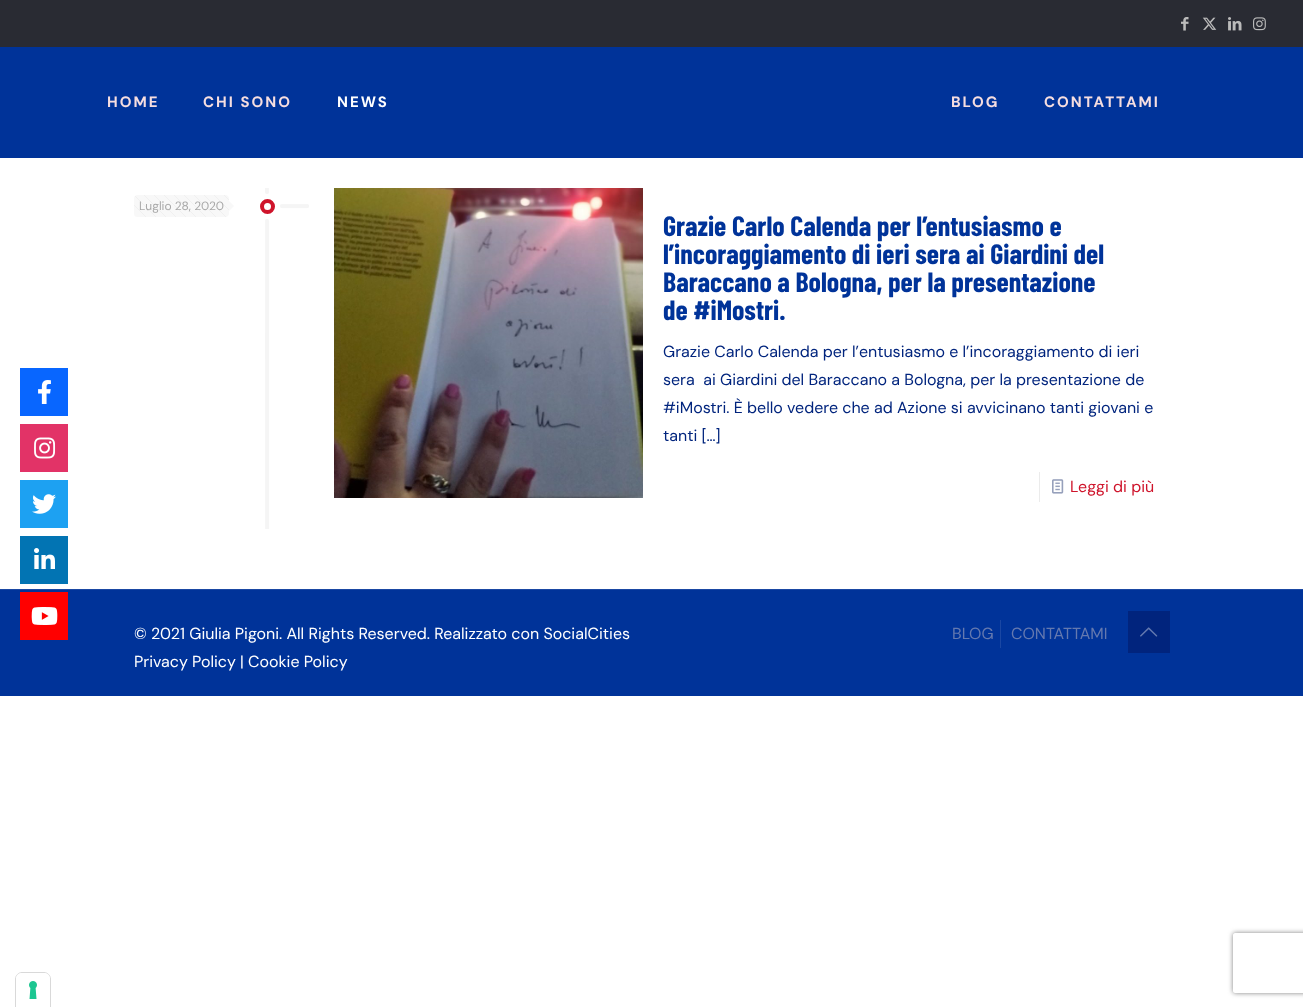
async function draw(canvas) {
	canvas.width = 1303;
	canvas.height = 1007;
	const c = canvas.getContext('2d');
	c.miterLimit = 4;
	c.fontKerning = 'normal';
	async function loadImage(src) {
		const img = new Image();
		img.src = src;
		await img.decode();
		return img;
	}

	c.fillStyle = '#fff';
	c.fillRect(0, 0, 1303, 1007);
	c.fillStyle = '#0866ff';
	c.fillRect(20, 368, 48, 48);
	c.drawImage(await loadImage('img1.png'), 38, 380, 13, 24);
	c.fillStyle = '#e23367';
	c.fillRect(20, 424, 48, 48);
	c.drawImage(await loadImage('img2.png'), 34, 437, 22, 22);
	c.fillStyle = '#1da1f2';
	c.fillRect(20, 480, 48, 48);
	c.drawImage(await loadImage('img3.png'), 32, 494, 24, 20);
	c.fillStyle = '#0274b3';
	c.fillRect(20, 536, 48, 48);
	c.drawImage(await loadImage('img4.png'), 34, 548, 21, 21);
	c.fillStyle = '#039';
	c.fillRect(0, 590, 1303, 106);
	c.fillStyle = '#f00';
	c.fillRect(20, 592, 48, 48);
	c.drawImage(await loadImage('img5.png'), 31, 607, 27, 18);
	c.fillStyle = '#292b33';
	c.fillRect(0, 0, 1303, 47);
	c.drawImage(await loadImage('img6.png'), 1181, 17, 8, 14);
	c.drawImage(await loadImage('img7.png'), 1202, 17, 15, 13);
	c.drawImage(await loadImage('img8.png'), 1228, 17, 14, 14);
	c.drawImage(await loadImage('img9.png'), 1253, 17, 13, 14);
	c.fillStyle = '#039';
	c.fillRect(0, 47, 1303, 111);
	c.letterSpacing = '2px';
	c.font = 'bold 15px DM Sans';
	c.fillStyle = '#f6dee0';
	c.fillText('HOME', 107, 107);
	c.fillText('CHI SONO', 203, 107);
	c.fillStyle = '#fff';
	c.fillText('NEWS', 337, 107);
	c.fillStyle = '#f6dee0';
	c.fillText('BLOG', 951, 107);
	c.fillText('CONTATTAMI', 1044, 107);
	c.drawImage(await loadImage('img10.png'), 265, 188, 44, 341);
	c.fillStyle = '#f8f8f8';
	c.beginPath();
	c.roundRect(134, 195, 95, 22, 4);
	c.fill();
	c.drawImage(await loadImage('img11.png'), 134, 195, 95, 22);
	c.letterSpacing = '0px';
	c.font = '12px DM Sans';
	c.fillStyle = '#a8a8a8';
	c.fillText('Luglio 28, 2020', 139, 210);
	c.fillStyle = '#f8f8f8';
	c.beginPath();
	c.moveTo(229, 211);
	c.lineTo(229, 201);
	c.lineTo(234, 206);
	c.closePath();
	c.fill();
	c.beginPath();
	c.arc(267.5, 206.5, 5.5, 0, 2 * Math.PI);
	c.strokeStyle = '#cf142b';
	c.lineWidth = 4;
	c.stroke();
	c.drawImage(await loadImage('img12.png'), 334, 188, 309, 310);
	c.font = 'bold 28px Barlow Condensed';
	c.fillStyle = '#039';
	for (const [text, x, y] of [
		['Grazie Carlo Calenda per l’entusiasmo e', 663, 236],
		['l’incoraggiamento di ieri sera ai Giardini del', 663, 264],
		['Baraccano a Bologna, per la presentazione', 663, 292],
		['de #iMostri.', 663, 320],
	]) {
		c.fillText(text, x, y);
	}
	c.font = '16px DM Sans';
	c.fillStyle = '#01247d';
	for (const [text, x, y] of [
		['Grazie Carlo Calenda per l’entusiasmo e l’incoraggiamento di ieri', 663, 357],
		['sera  ai Giardini del Baraccano a Bologna, per la presentazione de', 663, 385],
		['#iMostri. È bello vedere che ad Azione si avvicinano tanti giovani e', 663, 413],
		['tanti […]', 663, 441],
	]) {
		c.fillText(text, x, y);
	}
	c.fillStyle = '#ebebeb';
	c.fillRect(1039, 472, 1, 30);
	c.drawImage(await loadImage('img13.png'), 1052, 479, 12, 15);
	c.fillStyle = '#cf142b';
	c.fillText('Leggi di più', 1070, 492);
	c.fillStyle = '#1a47a3';
	c.fillRect(0, 589, 1303, 1);
	c.fillStyle = '#fff';
	c.fillText('© 2021 Giulia Pigoni. All Rights Reserved. Realizzato con SocialCities', 134, 639);
	c.fillText('Privacy Policy | Cookie Policy', 134, 667);
	c.fillStyle = '#1a47a3';
	c.fillRect(1000, 620, 1, 28);
	c.fillStyle = '#6479af';
	c.fillText('BLOG', 952, 639);
	c.fillText('CONTATTAMI', 1011, 639);
	c.fillStyle = '#01247d';
	c.fillRect(1128, 611, 42, 42);
	c.drawImage(await loadImage('img14.png'), 1140, 627, 18, 10);
	c.beginPath();
	c.moveTo(22, 972.5);
	c.lineTo(44, 972.5);
	c.bezierCurveTo(47.5, 972.5, 50.5, 975.5, 50.5, 979);
	c.lineTo(50.5, 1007.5);
	c.lineTo(15.5, 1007.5);
	c.lineTo(15.5, 979);
	c.bezierCurveTo(15.5, 975.5, 18.5, 972.5, 22, 972.5);
	c.closePath();
	c.strokeStyle = '#d9d9d9';
	c.lineWidth = 1;
	c.stroke();
	c.fillStyle = '#fff';
	c.beginPath();
	c.roundRect(16, 973, 34, 34, [6, 6, 0, 0]);
	c.fill();
	c.drawImage(await loadImage('img15.png'), 29, 981, 8, 18);
	c.save();
	c.beginPath();
	c.moveTo(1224, 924);
	c.lineTo(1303, 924);
	c.lineTo(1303, 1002);
	c.lineTo(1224, 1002);
	c.closePath();
	c.moveTo(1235, 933);
	c.lineTo(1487, 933);
	c.bezierCurveTo(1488, 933, 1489, 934, 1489, 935);
	c.lineTo(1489, 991);
	c.bezierCurveTo(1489, 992, 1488, 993, 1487, 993);
	c.lineTo(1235, 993);
	c.bezierCurveTo(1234, 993, 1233, 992, 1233, 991);
	c.lineTo(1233, 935);
	c.bezierCurveTo(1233, 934, 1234, 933, 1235, 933);
	c.closePath();
	c.clip('evenodd');
	c.fillStyle = '#808080';
	c.filter = 'blur(2.5px)';
	c.beginPath();
	c.roundRect(1233, 933, 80, 60, 2);
	c.fill();
	c.filter = 'none';
	c.restore();
}

draw(document.querySelector('canvas'));
